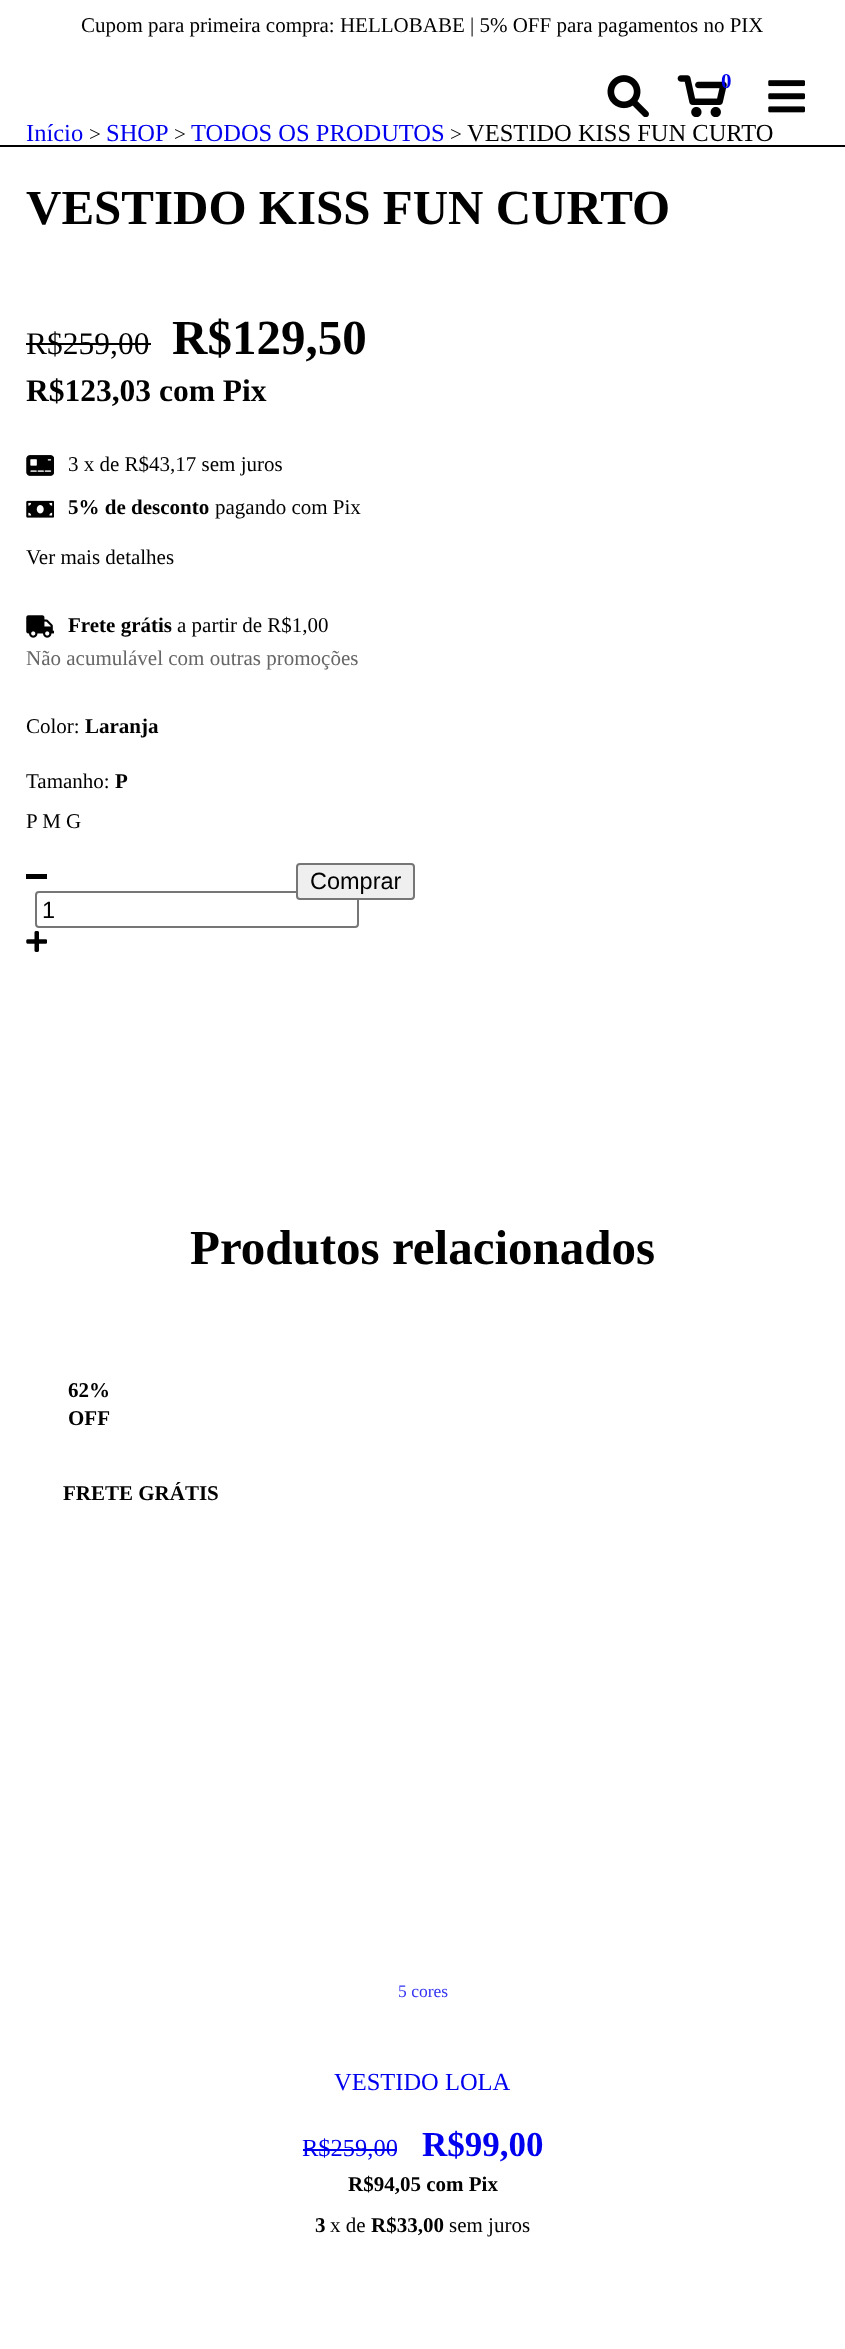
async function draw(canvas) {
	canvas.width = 845;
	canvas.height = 2349;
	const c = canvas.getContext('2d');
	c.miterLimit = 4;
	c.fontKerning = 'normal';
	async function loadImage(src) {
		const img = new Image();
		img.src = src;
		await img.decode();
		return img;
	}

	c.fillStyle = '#fff';
	c.fillRect(0, 0, 845, 2349);
	c.font = '21px Liberation Serif';
	c.fillStyle = '#000';
	c.fillText('Cupom para primeira compra: HELLOBABE | 5% OFF para pagamentos no PIX', 81, 32);
	c.drawImage(await loadImage('img1.png'), 607, 75, 42, 42);
	c.drawImage(await loadImage('img2.png'), 677, 75, 50, 42);
	c.font = 'bold 21px Liberation Serif';
	c.fillStyle = '#00e';
	c.fillText('0', 721, 88);
	c.drawImage(await loadImage('img3.png'), 768, 80, 37, 33);
	c.fillStyle = '#000';
	c.fillRect(0, 145, 845, 2);
	c.font = '24.5px Liberation Serif';
	c.fillStyle = '#00e';
	c.fillText('Início', 26, 141);
	c.font = '21px Liberation Serif';
	c.fillStyle = '#000';
	c.fillText('>', 89, 141);
	c.font = '24.5px Liberation Serif';
	c.fillStyle = '#00e';
	c.fillText('SHOP', 106, 141);
	c.font = '21px Liberation Serif';
	c.fillStyle = '#000';
	c.fillText('>', 174, 141);
	c.font = '24.5px Liberation Serif';
	c.fillStyle = '#00e';
	c.fillText('TODOS OS PRODUTOS', 191, 141);
	c.font = '21px Liberation Serif';
	c.fillStyle = '#000';
	c.fillText('>', 450, 141);
	c.font = '24.5px Liberation Serif';
	c.fillText('VESTIDO KISS FUN CURTO', 467, 141);
	c.font = 'bold 49px Liberation Serif';
	c.fillText('VESTIDO KISS FUN CURTO', 26, 224);
	c.font = '31.5px Liberation Serif';
	c.fillText('R$259,00', 26, 354);
	c.fillRect(26, 343, 125, 2);
	c.font = 'bold 49px Liberation Serif';
	c.fillText('R$129,50', 172, 354);
	c.font = 'bold 31.5px Liberation Serif';
	c.fillText('R$123,03 com Pix', 26, 401);
	c.drawImage(await loadImage('img4.png'), 26, 455, 28, 21);
	c.font = '21px Liberation Serif';
	c.fillText('3 x de R$43,17 sem juros', 68, 471);
	c.drawImage(await loadImage('img5.png'), 26, 500, 28, 18);
	c.font = 'bold 21px Liberation Serif';
	c.fillText('5% de desconto', 68, 514);
	c.font = '21px Liberation Serif';
	c.fillText('pagando com Pix', 215, 514);
	c.fillText('Ver mais detalhes', 26, 564);
	c.drawImage(await loadImage('img6.png'), 26, 615, 28, 23);
	c.font = 'bold 21px Liberation Serif';
	c.fillText('Frete grátis', 68, 632);
	c.font = '21px Liberation Serif';
	c.fillText('a partir de R$1,00', 177, 632);
	c.fillStyle = '#666';
	c.fillText('Não acumulável com outras promoções', 26, 665);
	c.fillStyle = '#000';
	c.fillText('Color:', 26, 733);
	c.font = 'bold 21px Liberation Serif';
	c.fillText('Laranja', 85, 733);
	c.font = '21px Liberation Serif';
	c.fillText('Tamanho:', 26, 788);
	c.font = 'bold 21px Liberation Serif';
	c.fillText('P', 115, 788);
	c.font = '21px Liberation Serif';
	c.fillText('P M G', 26, 828);
	c.beginPath();
	c.roundRect(36, 892, 322, 35, 3);
	c.strokeStyle = '#767676';
	c.lineWidth = 2;
	c.stroke();
	c.fillStyle = '#efefef';
	c.beginPath();
	c.roundRect(297, 864, 117, 35, 3);
	c.fill();
	c.stroke();
	c.font = '23.5px Liberation Sans';
	c.fillStyle = '#000';
	c.fillText('Comprar', 310, 889);
	c.fillRect(26, 874, 21, 5);
	c.fillText('1', 42, 918);
	c.drawImage(await loadImage('img7.png'), 26, 931, 21, 21);
	c.font = 'bold 49px Liberation Serif';
	c.fillText('Produtos relacionados', 190, 1264);
	c.font = 'bold 21px Liberation Serif';
	for (const [text, x, y] of [
		['62%', 68, 1397],
		['OFF', 68, 1425],
		['FRETE GRÁTIS', 63, 1500],
	]) {
		c.fillText(text, x, y);
	}
	c.font = '17.5px Liberation Serif';
	c.fillStyle = '#3333f1';
	c.fillText('5 cores', 398, 1997);
	c.font = '24.5px Liberation Serif';
	c.fillStyle = '#00e';
	c.fillText('VESTIDO LOLA', 334, 2090);
	c.fillText('R$259,00', 302, 2156);
	c.fillRect(303, 2149, 94, 2);
	c.font = 'bold 35px Liberation Serif';
	c.fillText('R$99,00', 422, 2156);
	c.font = 'bold 21px Liberation Serif';
	c.fillStyle = '#000';
	c.fillText('R$94,05 com Pix', 348, 2191);
	c.fillText('3', 315, 2232);
	c.font = '21px Liberation Serif';
	c.fillText('x de', 330, 2232);
	c.font = 'bold 21px Liberation Serif';
	c.fillText('R$33,00', 371, 2232);
	c.font = '21px Liberation Serif';
	c.fillText('sem juros', 449, 2232);
}

draw(document.querySelector('canvas'));
